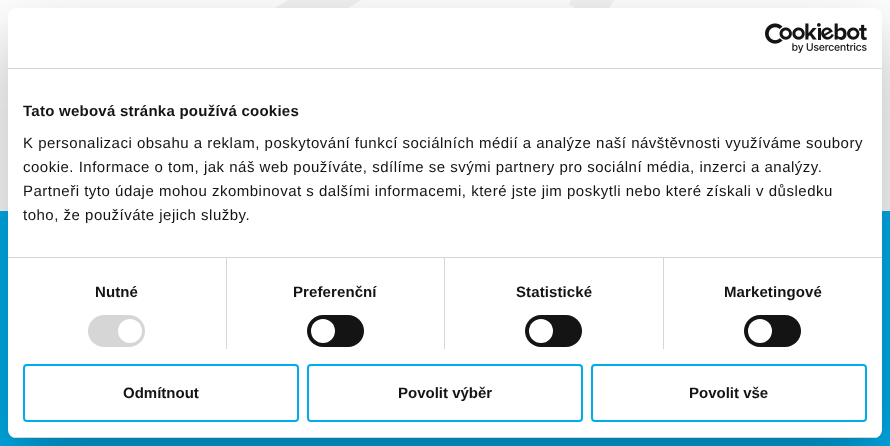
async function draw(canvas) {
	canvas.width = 890;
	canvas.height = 446;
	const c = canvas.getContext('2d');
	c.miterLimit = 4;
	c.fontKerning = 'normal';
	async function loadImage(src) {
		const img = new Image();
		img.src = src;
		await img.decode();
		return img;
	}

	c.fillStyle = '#fff';
	c.fillRect(0, 0, 890, 446);
	c.drawImage(await loadImage('img1.png'), 275, 0, 339, 8);
	c.fillStyle = '#00adeb';
	c.fillRect(0, 211, 890, 235);
	c.fillStyle = '#0000004d';
	c.filter = 'blur(34px)';
	c.beginPath();
	c.roundRect(8, 40, 874, 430, 8);
	c.fill();
	c.filter = 'none';
	c.fillStyle = '#fff';
	c.beginPath();
	c.roundRect(8, 8, 874, 430, 8);
	c.fill();
	c.fillStyle = '#d6d6d6';
	c.fillRect(8, 68, 874, 1);
	c.drawImage(await loadImage('img2.png'), 765, 23, 102, 30);
	c.fillRect(8, 257, 874, 1);
	c.letterSpacing = '0.25px';
	c.font = 'bold 15px Liberation Sans';
	c.fillStyle = '#141414';
	c.fillText('Tato webová stránka používá cookies', 23, 116);
	c.letterSpacing = '0.5px';
	c.font = '15px Liberation Sans';
	for (const [text, x, y] of [
		['K personalizaci obsahu a reklam, poskytování funkcí sociálních médií a analýze naší návštěvnosti využíváme soubory', 23, 148],
		['cookie. Informace o tom, jak náš web používáte, sdílíme se svými partnery pro sociální média, inzerci a analýzy.', 23, 172],
		['Partneři tyto údaje mohou zkombinovat s dalšími informacemi, které jste jim poskytli nebo které získali v důsledku', 23, 196],
		['toho, že používáte jejich služby.', 23, 220],
	]) {
		c.fillText(text, x, y);
	}
	c.fillStyle = '#d6d6d6';
	c.fillRect(226, 258, 1, 91);
	c.letterSpacing = '0.1px';
	c.font = 'bold 15px Liberation Sans';
	c.fillStyle = '#141414';
	c.fillText('Nutné', 95, 297);
	c.fillStyle = '#d6d6d6';
	c.beginPath();
	c.roundRect(88, 315, 57, 32, 16);
	c.fill();
	c.fillStyle = '#fff';
	c.beginPath();
	c.arc(130, 331, 12, 0, 2 * Math.PI);
	c.fill();
	c.fillStyle = '#d6d6d6';
	c.fillRect(444, 258, 1, 91);
	c.fillStyle = '#141414';
	c.fillText('Preferenční', 293, 297);
	c.beginPath();
	c.roundRect(307, 315, 57, 32, 16);
	c.fill();
	c.fillStyle = '#fff';
	c.beginPath();
	c.arc(323, 331, 12, 0, 2 * Math.PI);
	c.fill();
	c.fillStyle = '#d6d6d6';
	c.fillRect(663, 258, 1, 91);
	c.fillStyle = '#141414';
	c.fillText('Statistické', 516, 297);
	c.beginPath();
	c.roundRect(525, 315, 57, 32, 16);
	c.fill();
	c.fillStyle = '#fff';
	c.beginPath();
	c.arc(541, 331, 12, 0, 2 * Math.PI);
	c.fill();
	c.fillStyle = '#141414';
	c.fillText('Marketingové', 724, 297);
	c.beginPath();
	c.roundRect(744, 315, 57, 32, 16);
	c.fill();
	c.fillStyle = '#fff';
	c.beginPath();
	c.arc(760, 331, 12, 0, 2 * Math.PI);
	c.fill();
	c.save();
	c.beginPath();
	c.roundRect(8, 8, 874, 430, 8);
	c.clip();
	c.fillStyle = '#d6d6d6';
	c.fillRect(8, 437, 874, 1);
	c.restore();
	c.beginPath();
	c.roundRect(24, 365, 274, 56, 3);
	c.strokeStyle = '#00adeb';
	c.lineWidth = 2;
	c.stroke();
	c.letterSpacing = '0px';
	c.fillStyle = '#141414';
	c.fillText('Odmítnout', 123, 398);
	c.beginPath();
	c.roundRect(308, 365, 274, 56, 3);
	c.stroke();
	c.fillText('Povolit výběr', 398, 398);
	c.beginPath();
	c.roundRect(592, 365, 274, 56, 3);
	c.stroke();
	c.fillText('Povolit vše', 689, 398);
}

draw(document.querySelector('canvas'));
